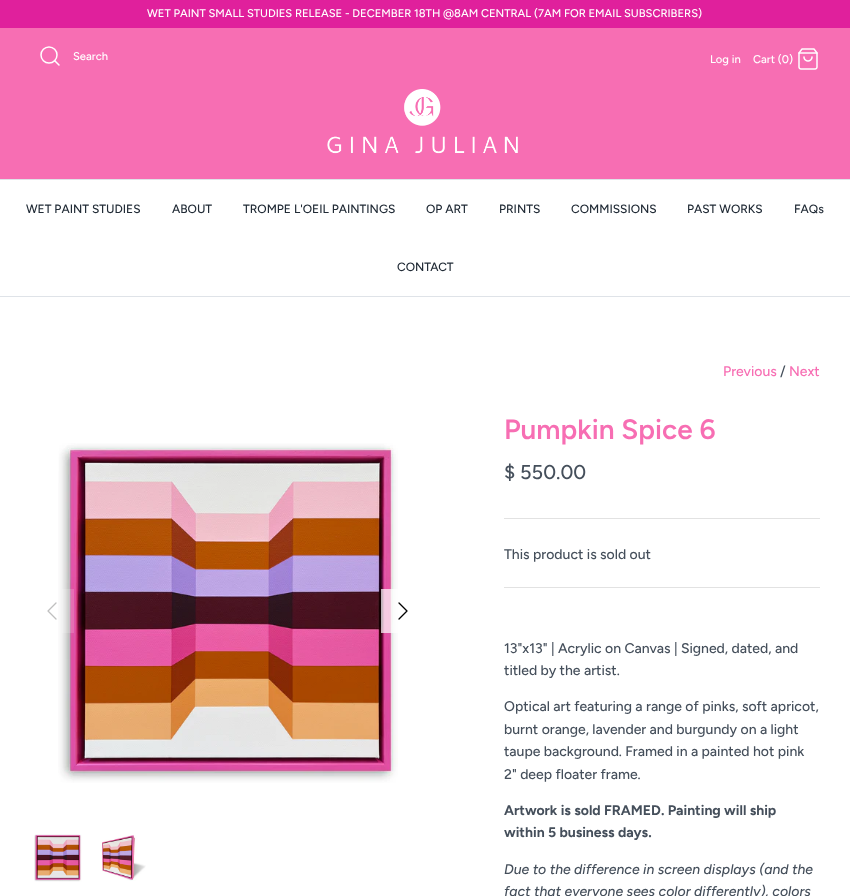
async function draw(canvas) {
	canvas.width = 850;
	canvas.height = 896;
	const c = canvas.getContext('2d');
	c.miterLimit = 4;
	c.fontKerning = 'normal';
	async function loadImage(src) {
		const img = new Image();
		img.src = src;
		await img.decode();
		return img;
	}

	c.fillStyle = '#fff';
	c.fillRect(0, 0, 850, 896);
	c.fillStyle = '#e0209c';
	c.fillRect(0, 0, 850, 28);
	c.font = '500 11.2px Figtree';
	c.fillStyle = '#fff';
	c.fillText('WET PAINT SMALL STUDIES RELEASE - DECEMBER 18TH @8AM CENTRAL (7AM FOR EMAIL SUBSCRIBERS)', 147, 17);
	c.fillStyle = '#f76eb3';
	c.fillRect(0, 28, 850, 151);
	c.beginPath();
	c.arc(49, 55, 8, 0, 2 * Math.PI);
	c.strokeStyle = '#fff';
	c.lineWidth = 1.5;
	c.stroke();
	c.beginPath();
	c.moveTo(59, 65);
	c.lineTo(54.5, 60.5);
	c.lineCap = 'round';
	c.lineJoin = 'round';
	c.stroke();
	c.fillStyle = '#fff';
	for (const [text, x, y] of [
		['Search', 73, 60],
		['Log in', 710, 63],
		['Cart (0)', 753, 63],
	]) {
		c.fillText(text, x, y);
	}
	c.drawImage(await loadImage('img1.png'), 798, 48, 20, 22);
	c.drawImage(await loadImage('img2.png'), 327, 89, 191, 65);
	c.fillStyle = '#dfe3e8';
	c.fillRect(0, 296, 850, 1);
	c.fillRect(0, 179, 850, 1);
	c.font = '500 12px Figtree';
	c.fillStyle = '#212b36';
	for (const [text, x, y] of [
		['WET PAINT STUDIES', 26, 213],
		['ABOUT', 172, 213],
		['TROMPE L\'OEIL PAINTINGS', 243, 213],
		['OP ART', 426, 213],
		['PRINTS', 499, 213],
		['COMMISSIONS', 571, 213],
		['PAST WORKS', 687, 213],
		['FAQs', 794, 213],
		['CONTACT', 397, 271],
	]) {
		c.fillText(text, x, y);
	}
	c.font = '500 14px Figtree';
	c.fillStyle = '#f76eb3';
	c.fillText('Previous', 723, 376);
	c.fillStyle = '#454f5b';
	c.fillText('/', 780, 376);
	c.fillStyle = '#f76eb3';
	c.fillText('Next', 789, 376);
	c.drawImage(await loadImage('img3.png'), 58, 443, 340, 340);
	c.fillStyle = '#ffffff2b';
	c.fillRect(62, 589, 12, 44);
	c.beginPath();
	c.moveTo(56, 619);
	c.lineTo(48, 611);
	c.lineTo(56, 603);
	c.strokeStyle = '#bfbfbf';
	c.lineWidth = 1.3;
	c.stroke();
	c.fillStyle = '#ffffffb3';
	c.fillRect(381, 589, 17, 44);
	c.beginPath();
	c.moveTo(399, 619);
	c.lineTo(407, 611);
	c.lineTo(399, 603);
	c.strokeStyle = '#000';
	c.stroke();
	c.drawImage(await loadImage('img4.png'), 34, 834, 48, 48);
	c.drawImage(await loadImage('img5.png'), 102, 835, 44, 46);
	c.fillStyle = '#e2e2e2';
	c.fillRect(504, 518, 316, 1);
	c.font = '600 28px Figtree';
	c.fillStyle = '#f76eb3';
	c.fillText('Pumpkin Spice 6', 504, 439);
	c.font = '500 20px Figtree';
	c.fillStyle = '#454f5b';
	c.fillText('$ 550.00', 504, 479);
	c.fillStyle = '#e2e2e2';
	c.fillRect(504, 587, 316, 1);
	c.font = '500 14px Figtree';
	c.fillStyle = '#454f5b';
	for (const [text, x, y] of [
		['This product is sold out', 504, 559],
		['13"x13" | Acrylic on Canvas | Signed, dated, and', 504, 653],
		['titled by the artist.', 504, 675],
		['Optical art featuring a range of pinks, soft apricot,', 504, 711],
		['burnt orange, lavender and burgundy on a light', 504, 734],
		['taupe background. Framed in a painted hot pink', 504, 756],
		['2" deep floater frame.', 504, 779],
	]) {
		c.fillText(text, x, y);
	}
	c.font = 'bold 14px Figtree';
	c.fillText('Artwork is sold FRAMED. Painting will ship', 504, 815);
	c.fillText('within 5 business days.', 504, 837);
	c.font = 'italic 500 14px Figtree';
	c.fillText('Due to the difference in screen displays (and the', 504, 874);
	c.fillText('fact that everyone sees color differently), colors', 504, 896);
}

draw(document.querySelector('canvas'));
